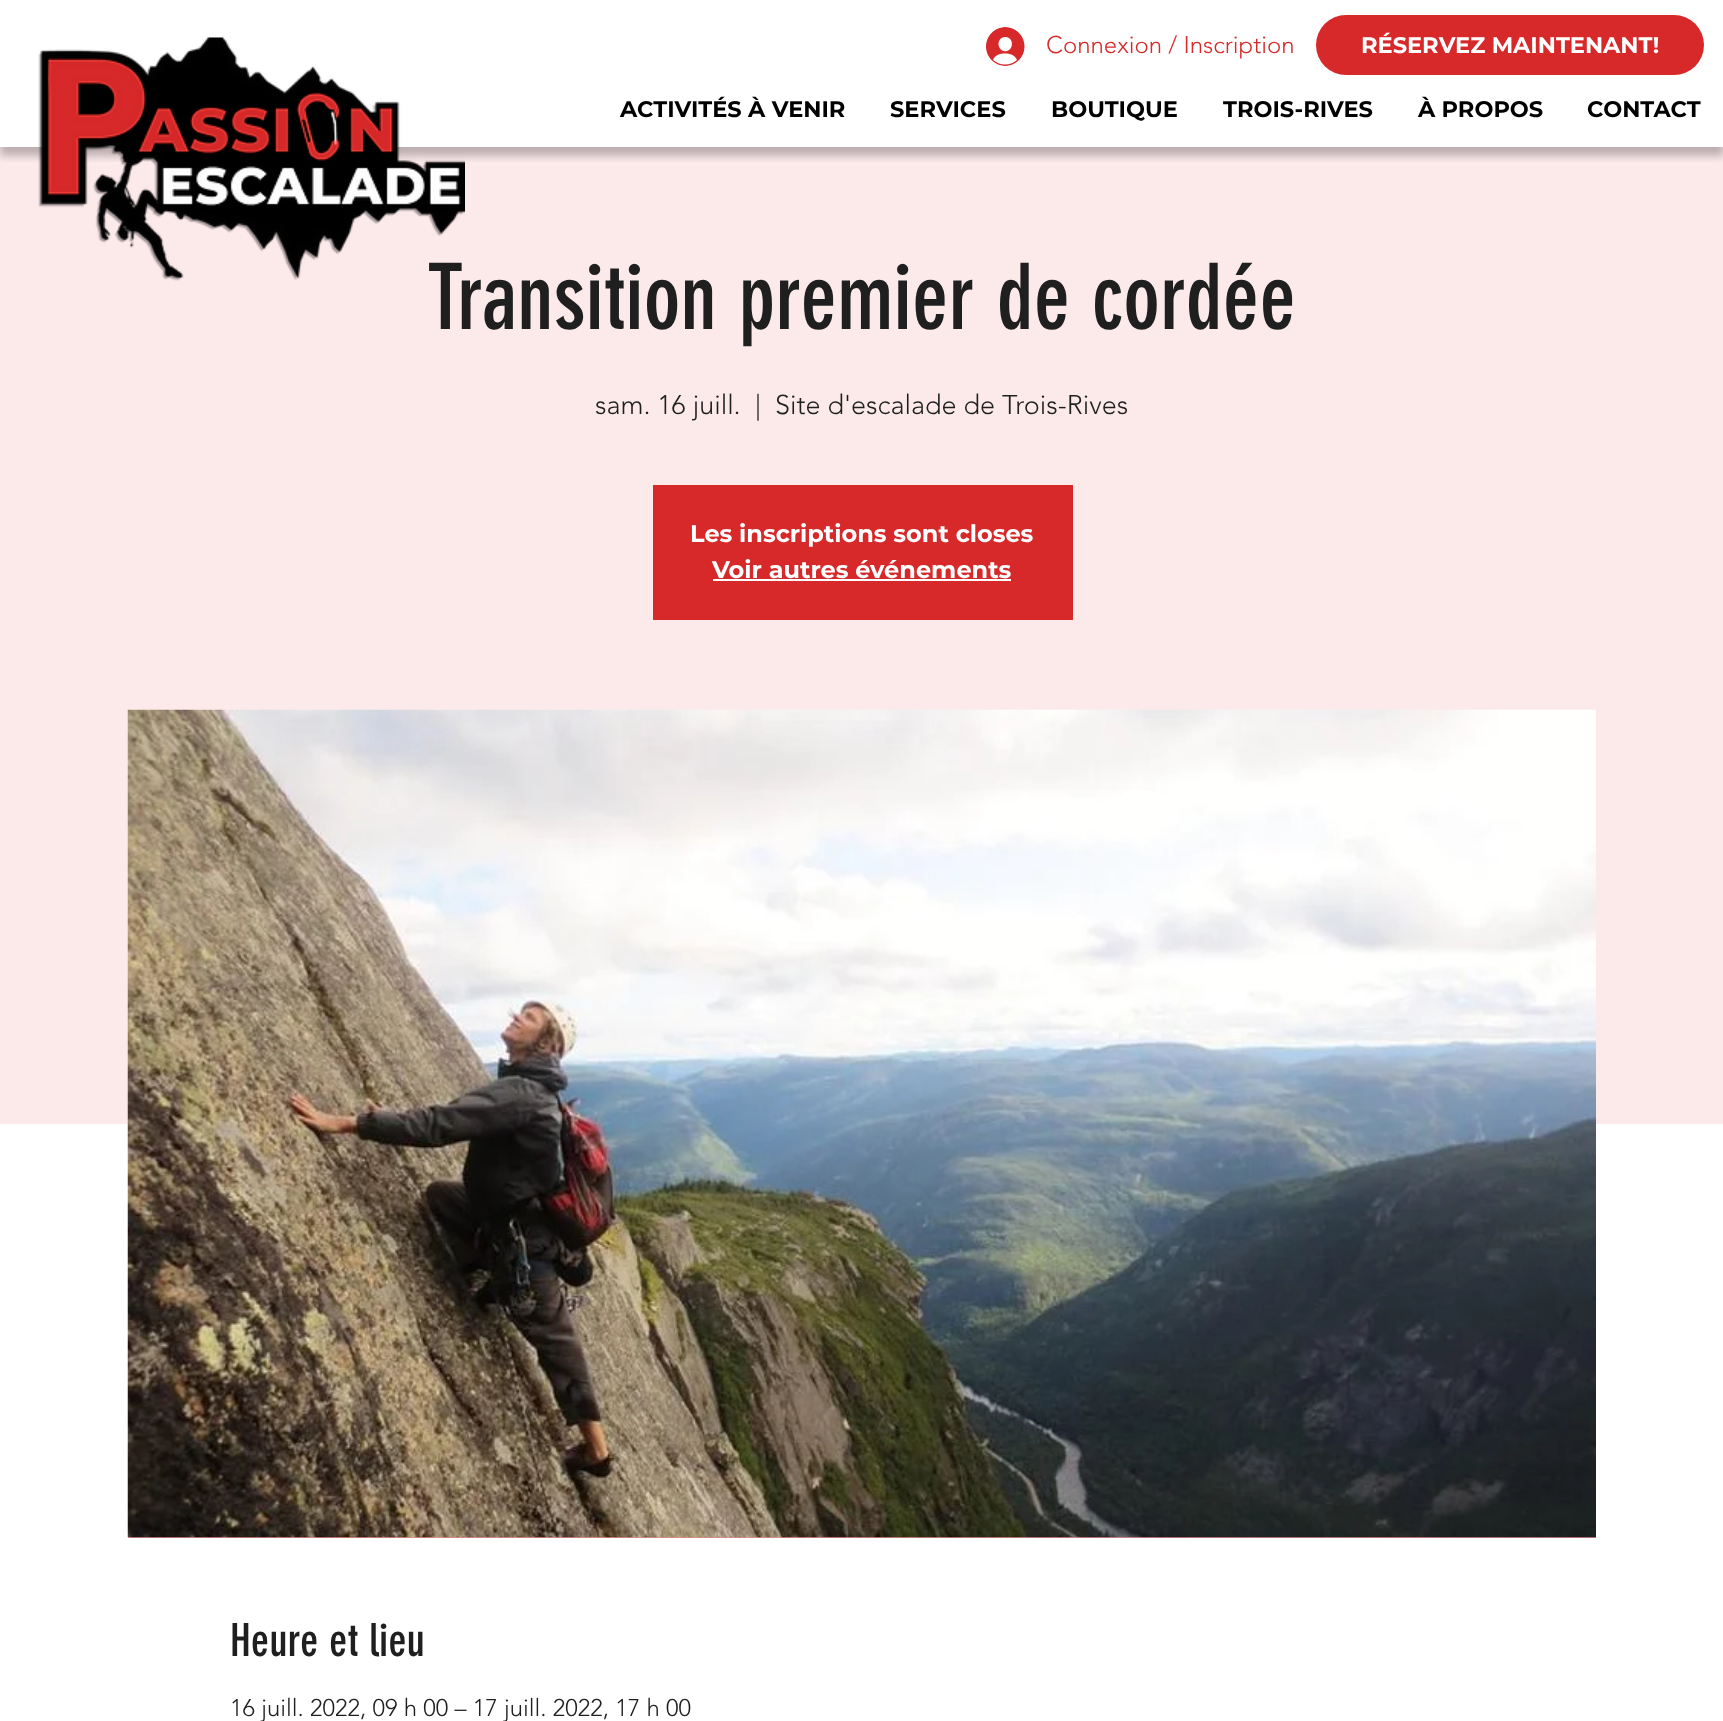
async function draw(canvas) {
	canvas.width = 1723;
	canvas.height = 1721;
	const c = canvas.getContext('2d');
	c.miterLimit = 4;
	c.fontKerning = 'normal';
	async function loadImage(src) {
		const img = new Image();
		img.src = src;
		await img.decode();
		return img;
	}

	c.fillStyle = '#fff';
	c.fillRect(0, 0, 1723, 1721);
	c.fillStyle = '#fceaeb';
	c.fillRect(0, 147, 1723, 977);
	c.save();
	c.beginPath();
	c.rect(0, 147, 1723, 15);
	c.clip();
	c.fillStyle = '#00000040';
	c.filter = 'blur(4px)';
	c.beginPath();
	c.rect(0, 9, 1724, 147);
	c.fill();
	c.filter = 'none';
	c.restore();
	c.font = '90px "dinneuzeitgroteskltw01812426"';
	c.fillStyle = '#1f1f1f';
	c.fillText('Transition premier de cordée', 427, 329);
	c.drawImage(await loadImage('img1.png'), 38, 37, 427, 244);
	c.drawImage(await loadImage('img2.png'), 986, 27, 39, 39);
	c.font = '300 24px "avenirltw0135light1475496"';
	c.fillStyle = '#d7292a';
	c.fillText('Connexion / Inscription', 1046, 53);
	c.beginPath();
	c.roundRect(1316, 15, 388, 60, 30);
	c.fill();
	c.font = 'bold 22.5px Montserrat';
	c.fillStyle = '#fff';
	c.fillText('RÉSERVEZ MAINTENANT!', 1361, 53);
	c.fillStyle = '#000';
	for (const [text, x, y] of [
		['ACTIVITÉS À VENIR', 620, 117],
		['SERVICES', 890, 117],
		['BOUTIQUE', 1051, 117],
		['TROIS-RIVES', 1223, 117],
		['À PROPOS', 1418, 117],
		['CONTACT', 1587, 117],
	]) {
		c.fillText(text, x, y);
	}
	c.font = '300 27px "avenirltw0135light1475496"';
	c.fillStyle = '#1f1f1f';
	for (const [text, x, y] of [
		['sam. 16 juill.', 595, 414],
		['|', 755, 414],
		['Site d\'escalade de Trois-Rives', 775, 414],
	]) {
		c.fillText(text, x, y);
	}
	c.fillStyle = '#d7292a';
	c.fillRect(653, 485, 420, 135);
	c.font = 'bold 24px Montserrat';
	c.fillStyle = '#fff';
	c.fillText('Les inscriptions sont closes', 690, 542);
	c.fillText('Voir autres événements', 712, 578);
	c.fillRect(713, 579, 298, 2);
	c.fillStyle = '#e48888';
	c.fillRect(128, 1537, 1468, 1);
	c.drawImage(await loadImage('img3.png'), 127, 709, 1469, 829);
	c.font = '45px "dinneuzeitgroteskltw01812426"';
	c.fillStyle = '#1f1f1f';
	c.fillText('Heure et lieu', 230, 1656);
	c.font = '300 24px "avenirltw0135light1475496"';
	c.fillText('16 juill. 2022, 09 h 00 – 17 juill. 2022, 17 h 00', 230, 1716);
}

draw(document.querySelector('canvas'));
